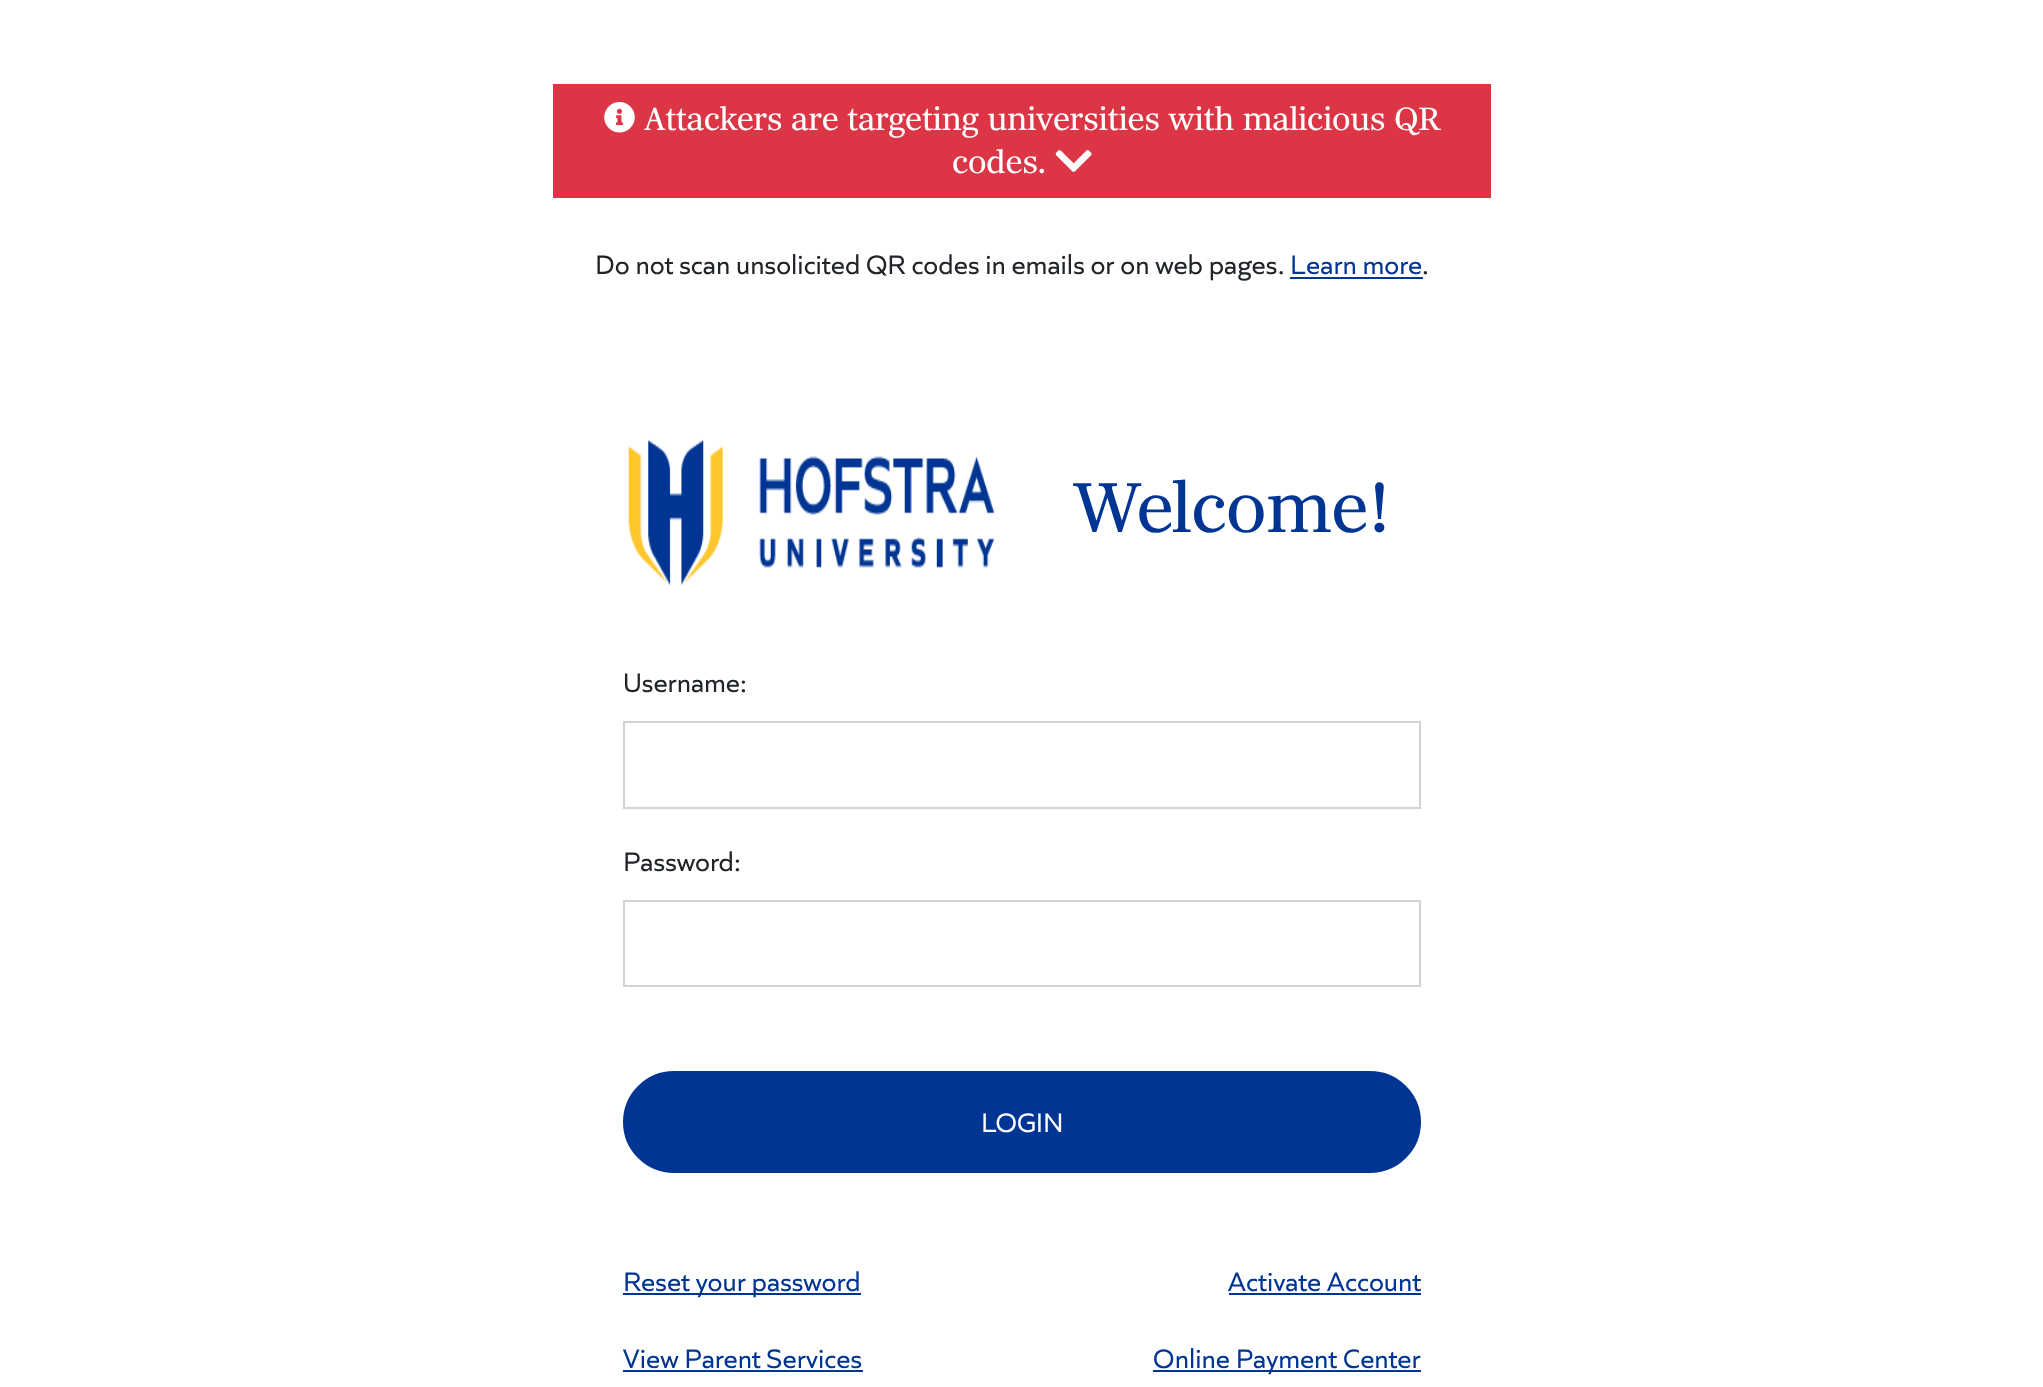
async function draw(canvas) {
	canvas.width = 2043;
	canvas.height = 1387;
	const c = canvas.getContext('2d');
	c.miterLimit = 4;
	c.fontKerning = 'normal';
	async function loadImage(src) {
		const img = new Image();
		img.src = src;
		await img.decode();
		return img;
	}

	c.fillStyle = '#fff';
	c.fillRect(0, 0, 2043, 1387);
	c.fillStyle = '#dc3545';
	c.fillRect(553, 84, 938, 114);
	c.drawImage(await loadImage('img1.png'), 604, 102, 31, 31);
	c.font = '31.5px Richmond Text';
	c.fillStyle = '#fff';
	c.fillText('Attackers are targeting universities with malicious QR', 644, 130);
	c.fillText('codes.', 952, 173);
	c.drawImage(await loadImage('img2.png'), 1055, 150, 37, 22);
	c.font = '28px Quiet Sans';
	c.fillStyle = '#212529';
	c.fillText('Do not scan unsolicited QR codes in emails or on web pages.', 595, 274);
	c.fillStyle = '#003594';
	c.fillText('Learn more', 1290, 274);
	c.fillRect(1290, 277, 133, 2);
	c.fillStyle = '#212529';
	c.fillText('.', 1422, 274);
	c.drawImage(await loadImage('img3.png'), 628, 439, 367, 146);
	c.font = '69px Richmond Text';
	c.fillStyle = '#003594';
	c.fillText('Welcome!', 1073, 532);
	c.font = '28px Quiet Sans';
	c.fillStyle = '#212529';
	c.fillText('Username:', 623, 692);
	c.strokeStyle = '#ced4da';
	c.lineWidth = 2;
	c.strokeRect(624, 722, 796, 86);
	c.fillText('Password:', 623, 871);
	c.strokeRect(624, 901, 796, 85);
	c.fillStyle = '#003594';
	c.beginPath();
	c.roundRect(624, 1072, 796, 100, 50);
	c.fill();
	c.strokeStyle = '#003594';
	c.stroke();
	c.fillStyle = '#fff';
	c.fillText('LOGIN', 981, 1132);
	c.fillStyle = '#003594';
	c.fillRect(623, 1293, 238, 2);
	c.fillText('Reset your password', 623, 1291);
	c.fillText('Activate Account', 1228, 1291);
	c.fillRect(1229, 1293, 192, 2);
	c.fillText('View Parent Services', 623, 1368);
	c.fillRect(623, 1370, 240, 2);
	c.fillRect(1153, 1370, 268, 2);
	c.fillText('Online Payment Center', 1153, 1368);
}

draw(document.querySelector('canvas'));
